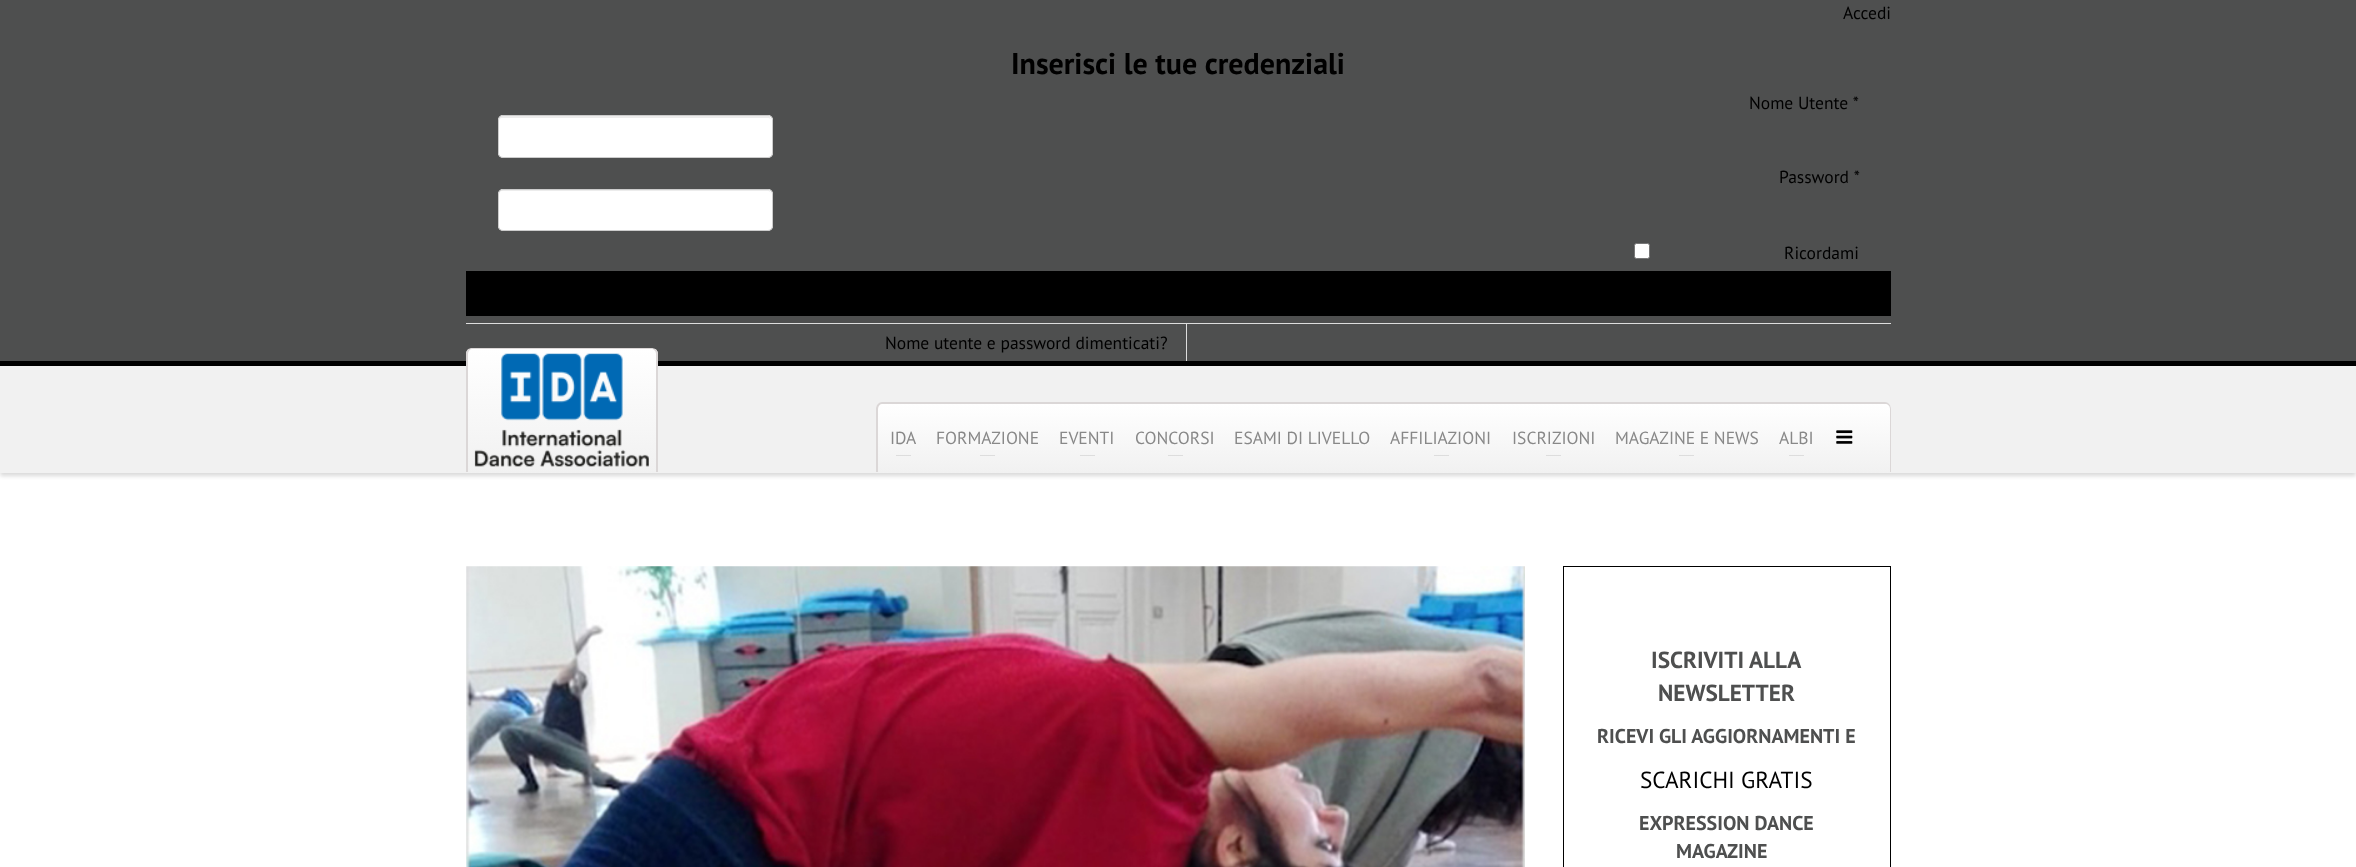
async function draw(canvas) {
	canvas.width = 2356;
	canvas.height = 867;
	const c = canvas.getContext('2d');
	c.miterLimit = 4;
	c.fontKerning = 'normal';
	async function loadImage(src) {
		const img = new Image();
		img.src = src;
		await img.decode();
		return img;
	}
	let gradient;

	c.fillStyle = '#fff';
	c.fillRect(0, 0, 2356, 867);
	c.fillStyle = '#4e4f4f';
	c.fillRect(0, 0, 2356, 361);
	c.fillStyle = '#000';
	c.fillRect(0, 361, 2356, 5);
	c.font = '17.5px PT Sans';
	c.fillText('Accedi', 1843, 19);
	c.font = 'bold 30px PT Sans';
	c.fillText('Inserisci le tue credenziali', 1011, 74);
	c.font = '17.5px PT Sans';
	c.fillText('Nome Utente *', 1749, 109);
	c.fillStyle = '#fff';
	c.beginPath();
	c.roundRect(498, 115, 275, 43, 5);
	c.fill();
	c.fillStyle = '#ececec';
	c.beginPath();
	c.moveTo(502, 118);
	c.lineTo(768, 118);
	c.bezierCurveTo(770, 118, 771, 119, 771, 121);
	c.bezierCurveTo(771, 118, 770, 116, 767, 116);
	c.lineTo(503, 116);
	c.bezierCurveTo(500, 116, 499, 118, 499, 121);
	c.bezierCurveTo(499, 119, 500, 118, 502, 118);
	c.closePath();
	c.fill();
	c.beginPath();
	c.roundRect(498.5, 115.5, 274, 42, 4.5);
	c.strokeStyle = '#ccc';
	c.stroke();
	c.fillStyle = '#000';
	c.fillText('Password *', 1779, 183);
	c.fillStyle = '#fff';
	c.beginPath();
	c.roundRect(498, 189, 275, 42, 5);
	c.fill();
	c.fillStyle = '#ececec';
	c.beginPath();
	c.moveTo(502, 191);
	c.lineTo(768, 191);
	c.bezierCurveTo(770, 191, 771, 193, 771, 195);
	c.bezierCurveTo(771, 192, 770, 190, 767, 190);
	c.lineTo(503, 190);
	c.bezierCurveTo(500, 190, 499, 192, 499, 195);
	c.bezierCurveTo(499, 193, 500, 191, 502, 191);
	c.closePath();
	c.fill();
	c.beginPath();
	c.roundRect(498.5, 189.5, 274, 41, 4.5);
	c.stroke();
	c.fillStyle = '#fff';
	c.beginPath();
	c.roundRect(1634.5, 243.5, 15, 15, 2);
	c.fill();
	c.strokeStyle = '#767676';
	c.stroke();
	c.fillStyle = '#000';
	c.fillText('Ricordami', 1784, 259);
	for (const [x, y, w, h, color] of [
		[466, 271, 1425, 45, '#000'],
		[466, 323, 1425, 1, '#ddd'],
		[1186, 324, 1, 37, '#ddd'],
	]) {
		c.fillStyle = color;
		c.fillRect(x, y, w, h);
	}
	c.fillStyle = '#000';
	c.fillText('Nome utente e password dimenticati?', 885, 349);
	c.fillStyle = '#00000026';
	c.filter = 'blur(2px)';
	c.beginPath();
	c.rect(0, 370, 2356, 106);
	c.fill();
	c.filter = 'none';
	c.fillStyle = '#f1f1f1';
	c.fillRect(0, 366, 2356, 107);
	c.save();
	c.beginPath();
	c.roundRect(466, 348, 192, 125, [6, 6, 0, 0]);
	c.clip();
	gradient = c.createLinearGradient(562, 473, 562, 349);
	gradient.addColorStop(0, '#f1f1f1');
	gradient.addColorStop(1, '#fff');
	c.fillStyle = gradient;
	c.fillRect(466, 349, 192, 124);
	c.restore();
	c.fillStyle = '#dbd7d7';
	c.beginPath();
	c.moveTo(472, 348);
	c.lineTo(651, 348);
	c.bezierCurveTo(655, 348, 658, 350, 658, 354);
	c.lineTo(658, 472);
	c.lineTo(466, 472);
	c.lineTo(466, 354);
	c.bezierCurveTo(466, 350, 469, 348, 472, 348);
	c.closePath();
	c.moveTo(472, 349);
	c.lineTo(651, 349);
	c.bezierCurveTo(654, 349, 656, 351, 656, 354);
	c.lineTo(656, 472);
	c.lineTo(468, 472);
	c.lineTo(468, 354);
	c.bezierCurveTo(468, 351, 470, 349, 472, 349);
	c.closePath();
	c.fill('evenodd');
	c.drawImage(await loadImage('img1.png'), 474, 353, 175, 114);
	c.save();
	c.beginPath();
	c.roundRect(876, 403, 1015, 70, [6, 6, 0, 0]);
	c.clip();
	gradient = c.createLinearGradient(1384, 473, 1384, 404);
	gradient.addColorStop(0, '#f1f1f1');
	gradient.addColorStop(1, '#fff');
	c.fillStyle = gradient;
	c.fillRect(876, 404, 1015, 69);
	c.restore();
	c.beginPath();
	c.moveTo(882, 402);
	c.lineTo(1885, 402);
	c.bezierCurveTo(1888, 402, 1891, 405, 1891, 409);
	c.lineTo(1891, 472);
	c.lineTo(876, 472);
	c.lineTo(876, 409);
	c.bezierCurveTo(876, 405, 879, 402, 882, 402);
	c.closePath();
	c.moveTo(882, 404);
	c.lineTo(1885, 404);
	c.bezierCurveTo(1888, 404, 1890, 406, 1890, 409);
	c.lineTo(1890, 472);
	c.lineTo(878, 472);
	c.lineTo(878, 409);
	c.bezierCurveTo(878, 406, 880, 404, 882, 404);
	c.closePath();
	c.fill('evenodd');
	c.fillStyle = '#888';
	c.fillText('IDA', 890, 444);
	c.fillStyle = '#ddd';
	c.fillRect(896, 455, 15, 1);
	c.fillStyle = '#888';
	c.fillText('FORMAZIONE', 936, 444);
	c.fillStyle = '#ddd';
	c.fillRect(980, 455, 15, 1);
	c.fillStyle = '#888';
	c.fillText('EVENTI', 1059, 444);
	c.fillStyle = '#ddd';
	c.fillRect(1080, 455, 15, 1);
	c.fillStyle = '#888';
	c.fillText('CONCORSI', 1135, 444);
	c.fillStyle = '#ddd';
	c.fillRect(1168, 455, 15, 1);
	c.fillStyle = '#888';
	c.fillText('ESAMI DI LIVELLO', 1234, 444);
	c.fillText('AFFILIAZIONI', 1390, 444);
	c.fillStyle = '#ddd';
	c.fillRect(1434, 455, 15, 1);
	c.fillStyle = '#888';
	c.fillText('ISCRIZIONI', 1512, 444);
	c.fillStyle = '#ddd';
	c.fillRect(1546, 455, 15, 1);
	c.fillStyle = '#888';
	c.fillText('MAGAZINE E NEWS', 1615, 444);
	c.fillStyle = '#ddd';
	c.fillRect(1679, 455, 15, 1);
	c.fillStyle = '#888';
	c.fillText('ALBI', 1779, 444);
	c.fillStyle = '#ddd';
	c.fillRect(1789, 455, 15, 1);
	c.drawImage(await loadImage('img2.png'), 1836, 430, 17, 14);
	c.drawImage(await loadImage('img3.png'), 466, 566, 1059, 301);
	c.strokeStyle = '#000';
	c.strokeRect(1563.5, 566.5, 327, 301);
	c.font = 'bold 23.25px PT Sans';
	c.fillStyle = '#4e4f4f';
	c.fillText('ISCRIVITI ALLA', 1651, 668);
	c.fillText('NEWSLETTER', 1658, 701);
	c.font = 'bold 20px PT Sans';
	c.fillText('RICEVI GLI AGGIORNAMENTI E', 1597, 743);
	c.font = '23.25px PT Sans';
	c.fillStyle = '#000';
	c.fillText('SCARICHI GRATIS', 1640, 788);
	c.font = 'bold 20px PT Sans';
	c.fillStyle = '#4e4f4f';
	c.fillText('EXPRESSION DANCE', 1639, 830);
	c.fillText('MAGAZINE', 1676, 858);
}

draw(document.querySelector('canvas'));
